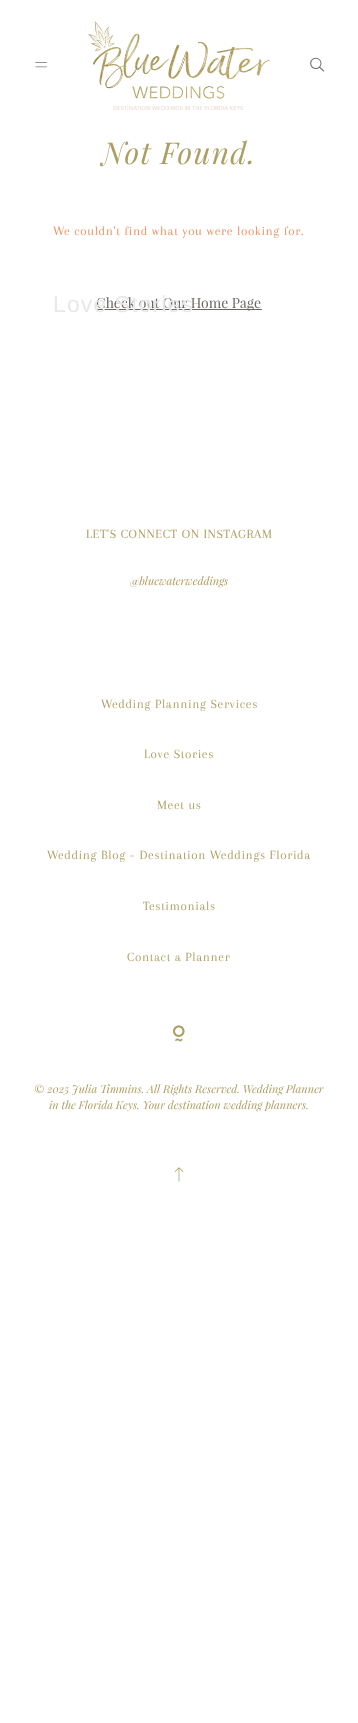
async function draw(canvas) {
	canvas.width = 358;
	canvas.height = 1723;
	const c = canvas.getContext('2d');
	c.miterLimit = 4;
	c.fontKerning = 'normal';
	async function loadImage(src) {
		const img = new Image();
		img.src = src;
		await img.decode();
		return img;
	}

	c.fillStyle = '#fff';
	c.fillRect(0, 0, 358, 1723);
	c.drawImage(await loadImage('img1.png'), 35, 62, 12, 6);
	c.drawImage(await loadImage('img2.png'), 88, 21, 182, 89);
	c.drawImage(await loadImage('img3.png'), 310, 57, 15, 15);
	c.letterSpacing = '1.25px';
	c.font = 'italic 30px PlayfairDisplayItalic';
	c.fillStyle = '#ac9f63';
	c.fillText('Not Found.', 102, 164);
	c.letterSpacing = '0.65px';
	c.font = '13px Arapey';
	c.fillStyle = '#ea9060';
	c.fillText('We couldn\'t find what you were looking for.', 53, 235);
	c.fillStyle = '#6b6764';
	c.fillRect(96, 309, 166, 1);
	c.letterSpacing = '0px';
	c.font = '14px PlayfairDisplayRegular';
	c.fillText('Check out Our Home Page', 96, 308);
	c.letterSpacing = '1.1px';
	c.font = '23px Liberation Sans';
	c.fillStyle = '#e9e8e8';
	c.fillText('Love Stories', 53, 312);
	c.letterSpacing = '0.65px';
	c.font = '13px Arapey';
	c.fillStyle = '#ae9b5d';
	c.fillText('LET\'S CONNECT ON INSTAGRAM', 86, 538);
	c.letterSpacing = '0px';
	c.font = 'italic 11px PlayfairDisplayItalic';
	c.fillText('@bluewaterweddings', 130, 585);
	c.letterSpacing = '0.65px';
	c.font = '13px Arapey';
	c.fillStyle = '#ac9f63';
	for (const [text, x, y] of [
		['Wedding Planning Services', 101, 708],
		['Love Stories', 144, 758],
		['Meet us', 157, 809],
		['Wedding Blog – Destination Weddings Florida', 47, 859],
		['Testimonials', 143, 910],
		['Contact a Planner', 127, 961],
	]) {
		c.fillText(text, x, y);
	}
	c.drawImage(await loadImage('img4.png'), 173, 1025, 12, 17);
	c.letterSpacing = '0px';
	c.font = 'italic 11px PlayfairDisplayItalic';
	c.fillText('© 2025 Julia Timmins. All Rights Reserved. Wedding Planner', 34, 1093);
	c.fillText('in the Florida Keys. Your destination wedding planners.', 49, 1109);
	c.drawImage(await loadImage('img5.png'), 174, 1167, 10, 15);
}

draw(document.querySelector('canvas'));
